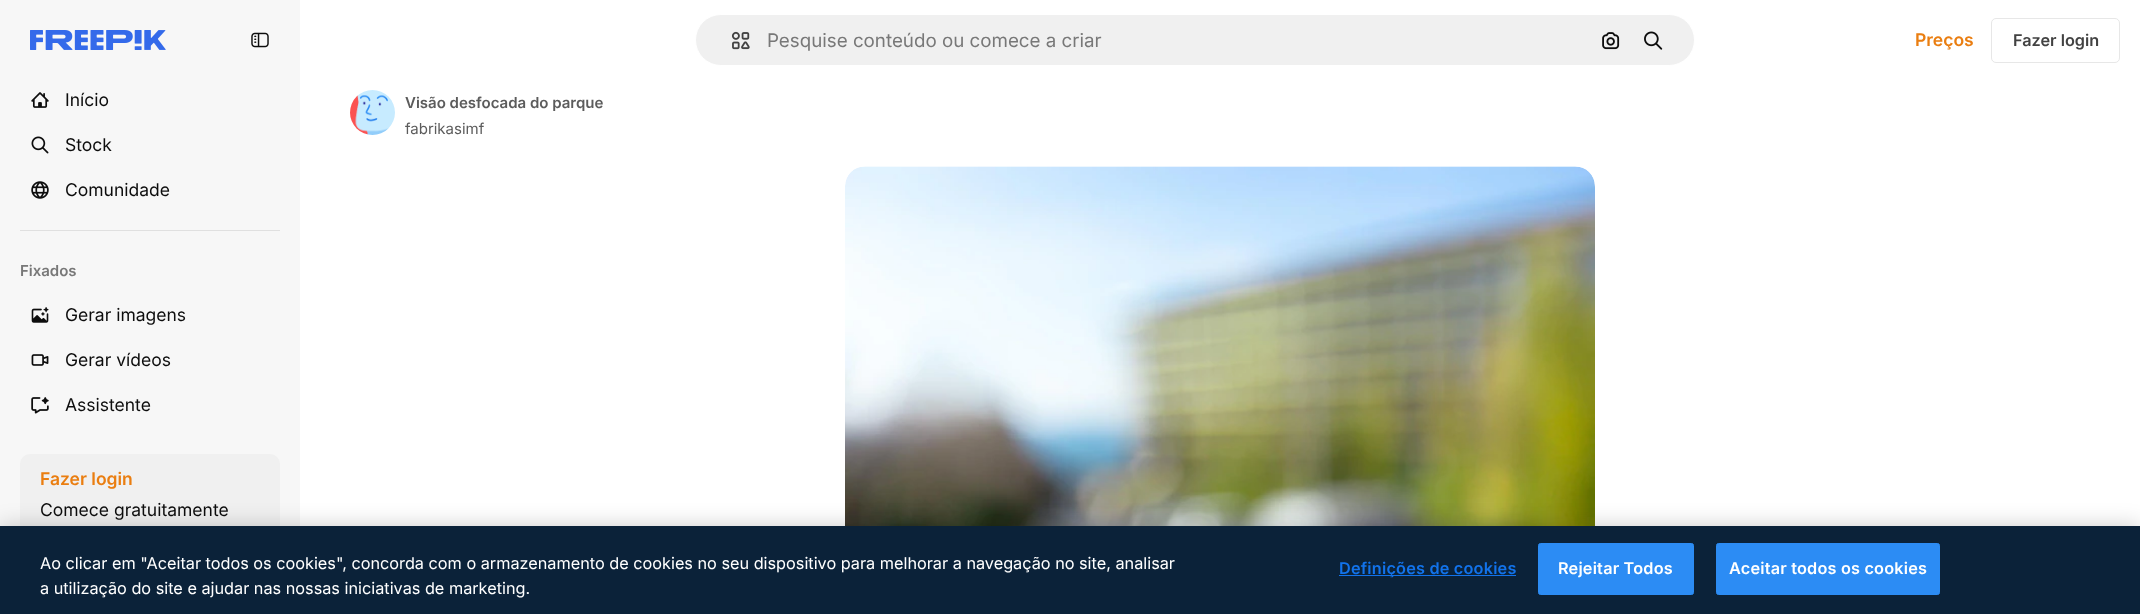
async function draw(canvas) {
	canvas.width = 2140;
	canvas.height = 614;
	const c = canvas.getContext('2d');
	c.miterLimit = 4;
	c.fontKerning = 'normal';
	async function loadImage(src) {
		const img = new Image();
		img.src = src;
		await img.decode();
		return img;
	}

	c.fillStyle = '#fff';
	c.fillRect(0, 0, 2140, 614);
	c.fillStyle = '#f7f7f7';
	c.fillRect(0, 0, 300, 526);
	c.drawImage(await loadImage('img1.png'), 30, 30, 136, 20);
	c.drawImage(await loadImage('img2.png'), 251, 32, 18, 16);
	c.drawImage(await loadImage('img3.png'), 31, 92, 18, 16);
	c.font = '17.5px Inter';
	c.fillStyle = '#0d0d0d';
	c.fillText('Início', 65, 106);
	c.drawImage(await loadImage('img4.png'), 31, 136, 18, 18);
	c.fillText('Stock', 65, 151);
	c.drawImage(await loadImage('img5.png'), 31, 181, 18, 18);
	c.fillText('Comunidade', 65, 196);
	c.fillStyle = '#e0e0e0';
	c.fillRect(20, 230, 260, 1);
	c.font = '600 15px Inter';
	c.fillStyle = '#787878';
	c.fillText('Fixados', 20, 276);
	c.drawImage(await loadImage('img6.png'), 31, 307, 18, 16);
	c.font = '17.5px Inter';
	c.fillStyle = '#0d0d0d';
	c.fillText('Gerar imagens', 65, 321);
	c.drawImage(await loadImage('img7.png'), 31, 354, 18, 12);
	c.fillText('Gerar vídeos', 65, 366);
	c.drawImage(await loadImage('img8.png'), 31, 397, 18, 17);
	c.fillText('Assistente', 65, 411);
	c.fillStyle = '#f0f0f0';
	c.beginPath();
	c.roundRect(20, 454, 260, 81, 10);
	c.fill();
	c.font = '600 17.5px Inter';
	c.fillStyle = '#ea7e11';
	c.fillText('Fazer login', 40, 485);
	c.font = '17.5px Inter';
	c.fillStyle = '#0d0d0d';
	c.fillText('Comece gratuitamente', 40, 516);
	c.fillStyle = '#f0f0f0';
	c.beginPath();
	c.roundRect(695.5, 14.5, 999, 51, 25.5);
	c.fill();
	c.strokeStyle = '#fff';
	c.stroke();
	c.drawImage(await loadImage('img9.png'), 731, 31, 19, 19);
	c.font = '18.75px Inter';
	c.fillStyle = '#787878';
	c.fillText('Pesquise conteúdo ou comece a criar', 767, 47);
	c.drawImage(await loadImage('img10.png'), 1602, 32, 18, 18);
	c.drawImage(await loadImage('img11.png'), 1644, 31, 19, 19);
	c.font = '600 17.5px Inter';
	c.fillStyle = '#ea7e11';
	c.fillText('Preços', 1915, 46);
	c.beginPath();
	c.roundRect(1991.5, 18.5, 128, 44, 4.5);
	c.strokeStyle = '#e7e7e7';
	c.stroke();
	c.font = '600 16.25px Inter';
	c.fillStyle = '#424242';
	c.fillText('Fazer login', 2013, 46);
	c.drawImage(await loadImage('img12.png'), 350, 90, 45, 45);
	c.font = '600 15px Inter';
	c.fillStyle = '#5c5c5c';
	c.fillText('Visão desfocada do parque', 405, 108);
	c.font = '15px Inter';
	c.fillText('fabrikasimf', 405, 134);
	c.drawImage(await loadImage('img13.png'), 845, 166, 750, 360);
	c.fillStyle = '#00000033';
	c.filter = 'blur(11px)';
	c.beginPath();
	c.rect(0, 526, 2140, 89);
	c.fill();
	c.filter = 'none';
	c.fillStyle = '#0b2239';
	c.fillRect(0, 526, 2140, 88);
	c.font = '16.25px Inter';
	c.fillStyle = '#fff';
	c.fillText('Ao clicar em "Aceitar todos os cookies", concorda com o armazenamento de cookies no seu dispositivo para melhorar a navegação no site, analisar', 40, 569);
	c.fillText('a utilização do site e ajudar nas nossas iniciativas de marketing.', 40, 594);
	c.fillStyle = '#1273eb';
	c.fillRect(1339, 575, 177, 1);
	c.letterSpacing = '0.2px';
	c.font = '600 16.25px Inter';
	c.fillText('Definições de cookies', 1339, 574);
	c.fillStyle = '#2c8cf4';
	c.beginPath();
	c.roundRect(1538.5, 543.5, 155, 51, 2);
	c.fill();
	c.strokeStyle = '#2c8cf4';
	c.stroke();
	c.fillStyle = '#fff';
	c.fillText('Rejeitar Todos', 1558, 574);
	c.fillStyle = '#2c8cf4';
	c.beginPath();
	c.roundRect(1716.5, 543.5, 223, 51, 2);
	c.fill();
	c.stroke();
	c.fillStyle = '#fff';
	c.fillText('Aceitar todos os cookies', 1729, 574);
}

draw(document.querySelector('canvas'));
